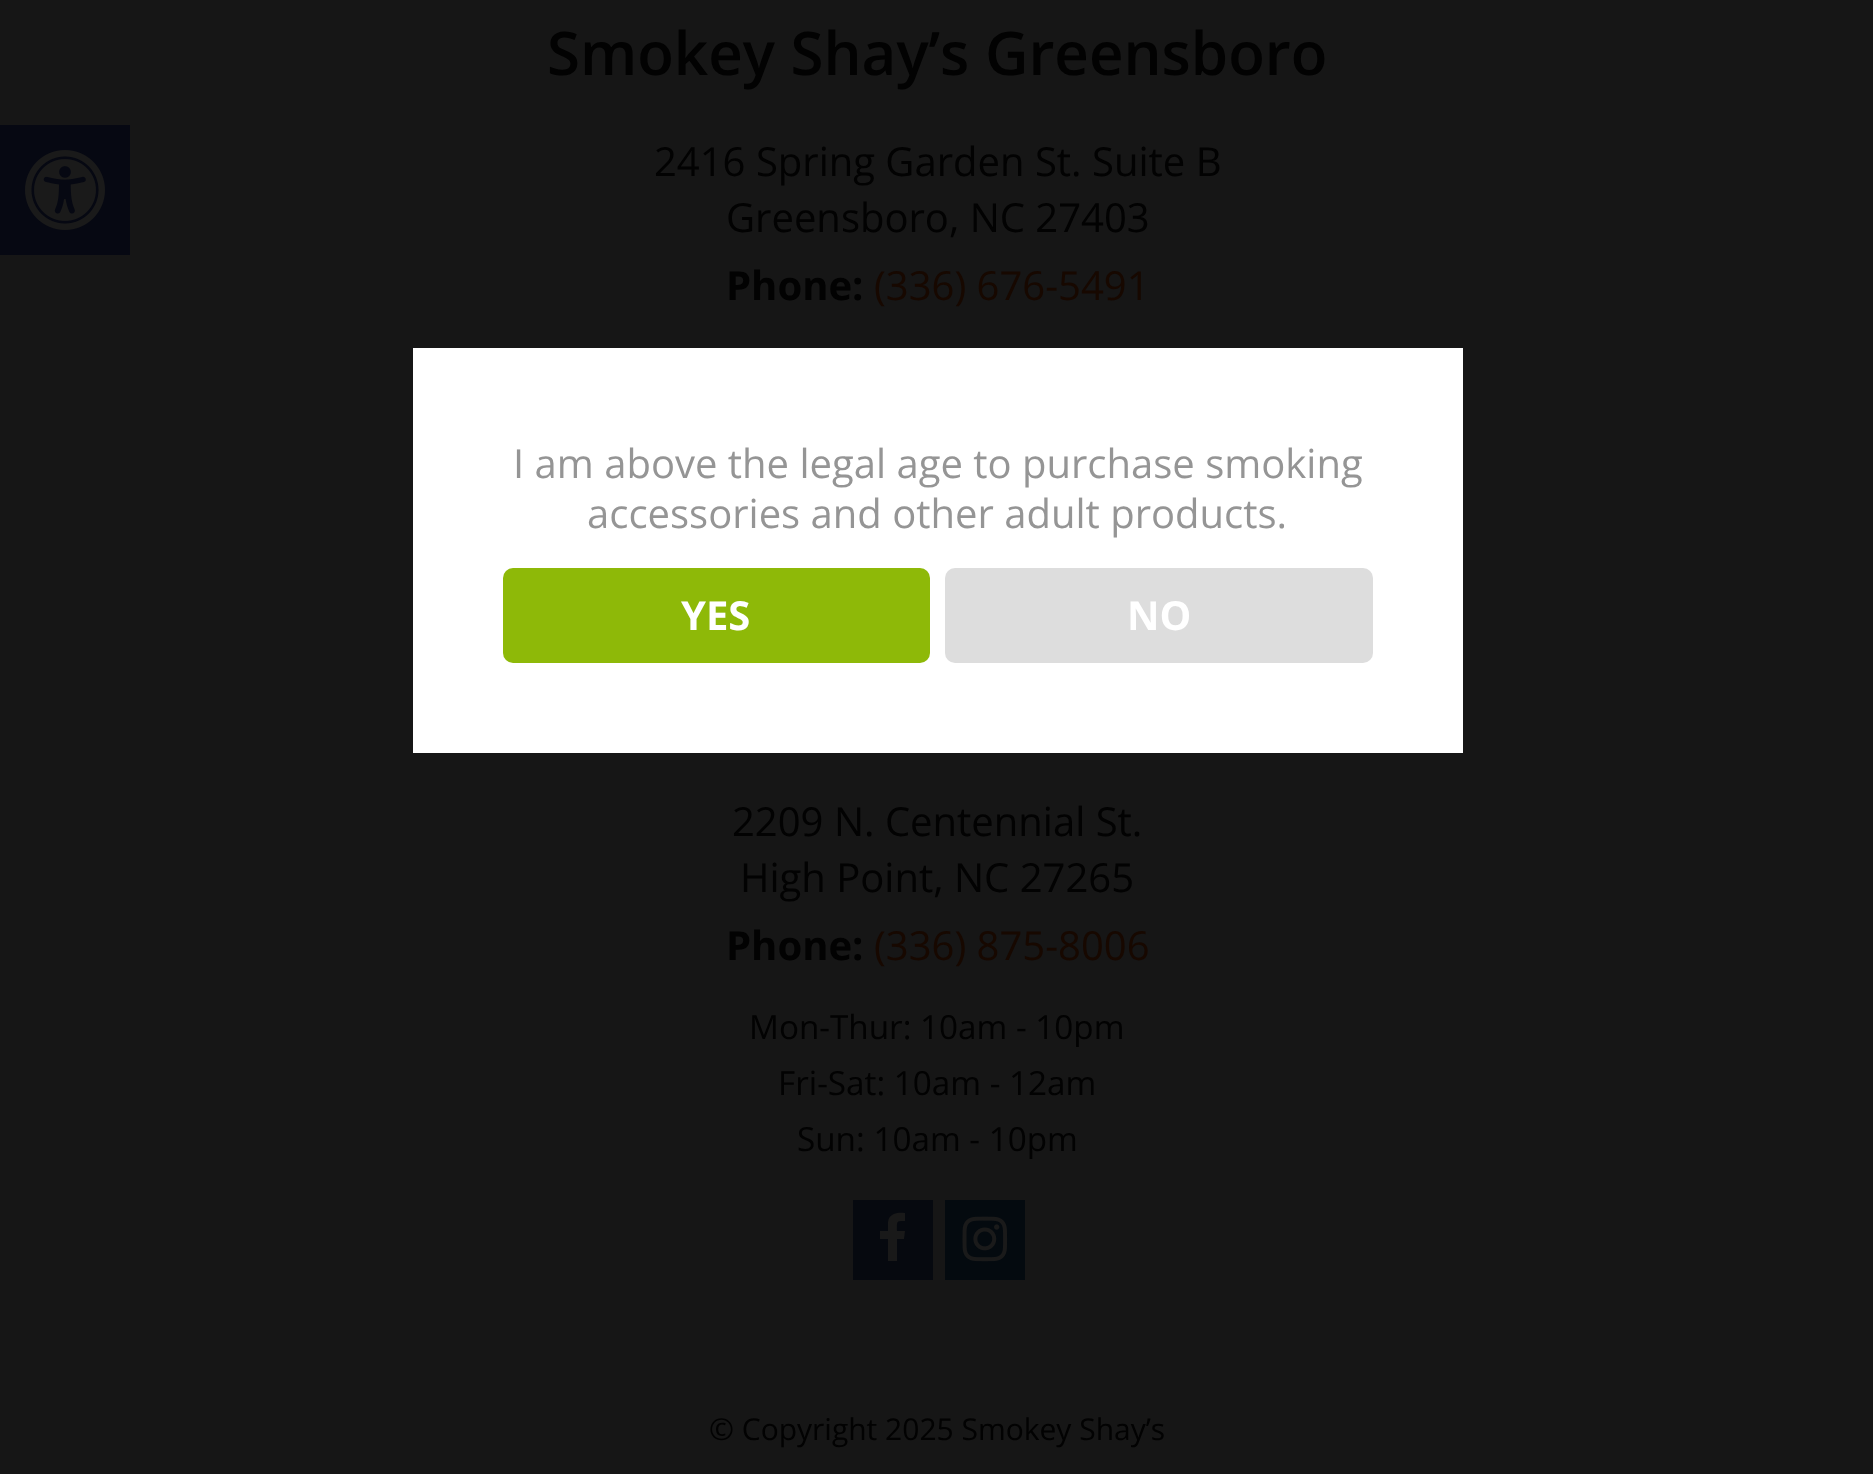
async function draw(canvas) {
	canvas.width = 1873;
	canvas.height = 1474;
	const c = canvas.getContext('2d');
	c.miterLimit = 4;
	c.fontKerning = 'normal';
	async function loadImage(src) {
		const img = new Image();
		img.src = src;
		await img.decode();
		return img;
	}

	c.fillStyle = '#161616';
	c.fillRect(0, 0, 1873, 1474);
	c.fillStyle = '#060812';
	c.fillRect(0, 125, 130, 130);
	c.drawImage(await loadImage('img1.png'), 25, 150, 80, 80);
	c.font = '600 60px Open Sans';
	c.fillStyle = '#020202';
	c.fillText('Smokey Shay’s Greensboro', 547, 75);
	c.font = '40px Open Sans';
	c.fillText('2416 Spring Garden St. Suite B', 654, 176);
	c.fillText('Greensboro, NC 27403', 726, 232);
	c.font = 'bold 40px Open Sans';
	c.fillText('Phone:', 726, 300);
	c.font = '40px Open Sans';
	c.fillStyle = '#170800';
	c.fillText('(336) 676-5491', 874, 300);
	c.fillStyle = '#020202';
	c.fillText('2209 N. Centennial St.', 732, 836);
	c.fillText('High Point, NC 27265', 740, 892);
	c.font = 'bold 40px Open Sans';
	c.fillText('Phone:', 726, 960);
	c.font = '40px Open Sans';
	c.fillStyle = '#170800';
	c.fillText('(336) 875-8006', 874, 960);
	c.font = '33.25px Open Sans';
	c.fillStyle = '#020202';
	for (const [text, x, y] of [
		['Mon-Thur: 10am - 10pm', 749, 1039],
		['Fri-Sat: 10am - 12am', 778, 1095],
		['Sun: 10am - 10pm', 797, 1151],
	]) {
		c.fillText(text, x, y);
	}
	c.fillStyle = '#06090f';
	c.fillRect(853, 1200, 80, 80);
	c.fillStyle = '#191919';
	c.beginPath();
	c.moveTo(905, 1213);
	c.lineTo(905, 1221);
	c.bezierCurveTo(896, 1221, 897, 1221, 897, 1231);
	c.lineTo(905, 1231);
	c.lineTo(904, 1239);
	c.lineTo(897, 1239);
	c.lineTo(897, 1261);
	c.lineTo(888, 1261);
	c.lineTo(888, 1239);
	c.lineTo(880, 1239);
	c.lineTo(880, 1231);
	c.lineTo(888, 1231);
	c.lineTo(888, 1222);
	c.bezierCurveTo(889, 1213, 898, 1212, 905, 1213);
	c.closePath();
	c.fill();
	c.fillStyle = '#040a0f';
	c.fillRect(945, 1200, 80, 80);
	c.drawImage(await loadImage('img2.png'), 962, 1216, 46, 46);
	c.font = '30px Open Sans';
	c.fillStyle = '#020202';
	c.fillText('© Copyright 2025 Smokey Shay’s', 709, 1440);
	c.fillStyle = '#fff';
	c.fillRect(413, 348, 1050, 405);
	c.font = '40px Open Sans';
	c.fillStyle = '#959595';
	c.fillText('I am above the legal age to purchase smoking', 513, 478);
	c.fillText('accessories and other adult products.', 587, 528);
	c.fillStyle = '#8eb908';
	c.beginPath();
	c.roundRect(503, 568, 427, 95, 10);
	c.fill();
	c.font = 'bold 40px Open Sans';
	c.fillStyle = '#fff';
	c.fillText('YES', 681, 630);
	c.fillStyle = '#ddd';
	c.beginPath();
	c.roundRect(945, 568, 428, 95, 10);
	c.fill();
	c.fillStyle = '#fff';
	c.fillText('NO', 1127, 630);
}

draw(document.querySelector('canvas'));
